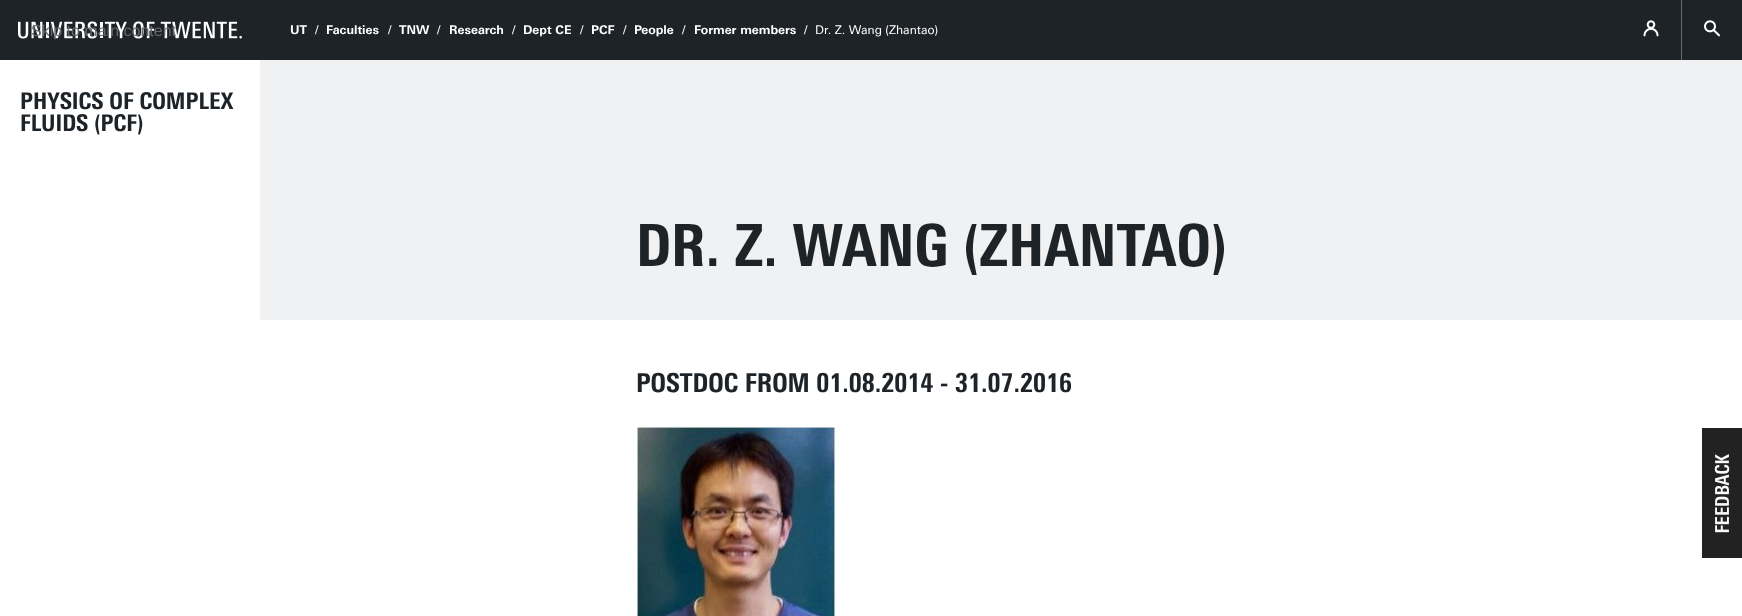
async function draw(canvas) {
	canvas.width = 1742;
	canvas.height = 616;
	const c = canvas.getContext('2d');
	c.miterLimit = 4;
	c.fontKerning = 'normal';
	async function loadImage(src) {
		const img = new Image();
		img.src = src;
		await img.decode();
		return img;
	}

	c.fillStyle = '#fff';
	c.fillRect(0, 0, 1742, 616);
	c.fillStyle = '#1e2328';
	c.fillRect(0, 0, 1742, 60);
	c.drawImage(await loadImage('img4.png'), 18, 21, 224, 18);
	c.font = '16px Liberation Sans';
	c.fillStyle = '#65686c';
	c.fillText('Skip to main content', 31, 36);
	c.font = 'bold 12px "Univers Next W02"';
	c.fillStyle = '#fff';
	c.fillText('UT', 290, 34);
	c.font = '12px "Univers Next W02"';
	c.fillText('/', 315, 34);
	c.font = 'bold 12px "Univers Next W02"';
	c.fillText('Faculties', 326, 34);
	c.font = '12px "Univers Next W02"';
	c.fillText('/', 388, 34);
	c.font = 'bold 12px "Univers Next W02"';
	c.fillText('TNW', 399, 34);
	c.font = '12px "Univers Next W02"';
	c.fillText('/', 437, 34);
	c.font = 'bold 12px "Univers Next W02"';
	c.fillText('Research', 449, 34);
	c.font = '12px "Univers Next W02"';
	c.fillText('/', 512, 34);
	c.font = 'bold 12px "Univers Next W02"';
	c.fillText('Dept CE', 523, 34);
	c.font = '12px "Univers Next W02"';
	c.fillText('/', 580, 34);
	c.font = 'bold 12px "Univers Next W02"';
	c.fillText('PCF', 591, 34);
	c.font = '12px "Univers Next W02"';
	c.fillText('/', 623, 34);
	c.font = 'bold 12px "Univers Next W02"';
	c.fillText('People', 634, 34);
	c.font = '12px "Univers Next W02"';
	c.fillText('/', 682, 34);
	c.font = 'bold 12px "Univers Next W02"';
	c.fillText('Former members', 694, 34);
	c.font = '12px "Univers Next W02"';
	c.fillText('/', 804, 34);
	c.fillText('Dr. Z. Wang (Zhantao)', 815, 34);
	c.drawImage(await loadImage('img1.png'), 1643, 20, 16, 17);
	c.fillStyle = '#686b6e';
	c.fillRect(1681, 0, 1, 60);
	c.drawImage(await loadImage('img2.png'), 1704, 20, 16, 17);
	c.fillStyle = '#f0f1f2';
	c.fillRect(260, 60, 1482, 260);
	c.font = '900 58px "Univers Next W02"';
	c.fillStyle = '#1e2328';
	c.fillText('DR. Z. WANG (ZHANTAO)', 636, 266);
	c.font = '900 26px "Univers Next W02"';
	c.fillText('POSTDOC FROM 01.08.2014 - 31.07.2016', 636, 392);
	c.drawImage(await loadImage('img3.png'), 636, 426, 200, 190);
	c.font = '900 23px "Univers Next W02"';
	c.fillText('PHYSICS OF COMPLEX', 20, 109);
	c.fillText('FLUIDS (PCF)', 20, 131);
	c.drawImage(await loadImage('img5.png'), 1702, 428, 40, 130);
}

draw(document.querySelector('canvas'));
